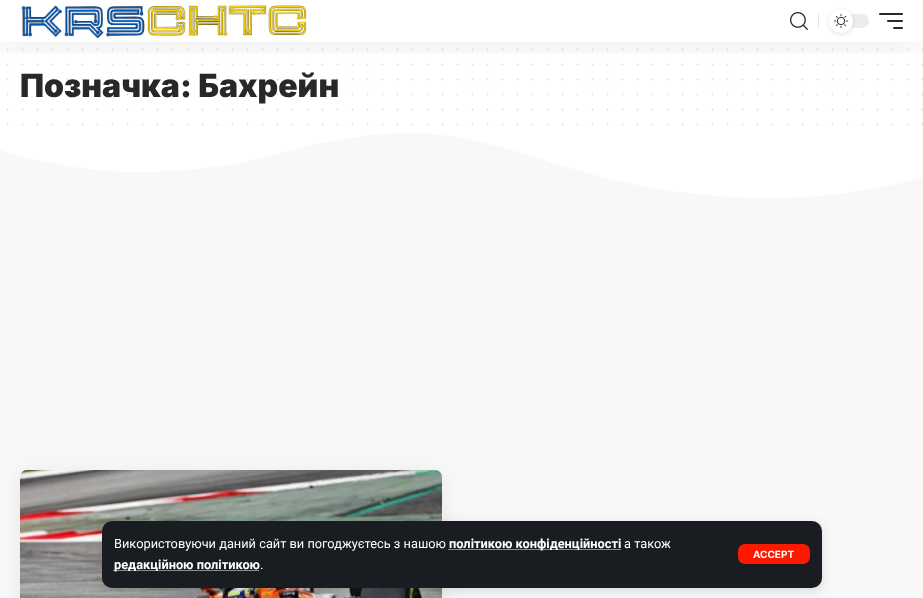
async function draw(canvas) {
	canvas.width = 923;
	canvas.height = 598;
	const c = canvas.getContext('2d');
	c.miterLimit = 4;
	c.fontKerning = 'normal';
	async function loadImage(src) {
		const img = new Image();
		img.src = src;
		await img.decode();
		return img;
	}

	c.fillStyle = '#fff';
	c.fillRect(0, 0, 923, 598);
	c.beginPath();
	c.moveTo(7.5, 49.5);
	c.lineTo(922.7, 49.5);
	c.strokeStyle = '#dfdfdf';
	c.lineWidth = 2;
	c.lineCap = 'round';
	c.setLineDash([0, 15]);
	c.stroke();
	c.beginPath();
	c.moveTo(7.5, 64.5);
	c.lineTo(922.7, 64.5);
	c.stroke();
	c.font = '900 32px Inter';
	c.fillStyle = '#282828';
	c.fillText('Позначка: Бахрейн', 20, 97);
	c.beginPath();
	c.moveTo(7.5, 79.5);
	c.lineTo(922.7, 79.5);
	c.strokeStyle = '#28282826';
	c.stroke();
	c.beginPath();
	c.moveTo(7.5, 94.5);
	c.lineTo(922.7, 94.5);
	c.stroke();
	c.beginPath();
	c.moveTo(7.5, 109.5);
	c.lineTo(922.7, 109.5);
	c.strokeStyle = '#dfdfdf';
	c.stroke();
	c.beginPath();
	c.moveTo(7.5, 124.5);
	c.lineTo(922.7, 124.5);
	c.stroke();
	c.fillStyle = '#f8f8f8';
	c.fillRect(0, 133, 923, 465);
	c.fillStyle = '#fff';
	c.beginPath();
	c.moveTo(390, 134);
	c.bezierCurveTo(463, 127, 532, 159, 602, 177);
	c.bezierCurveTo(669, 194, 739, 201, 808, 197);
	c.bezierCurveTo(847, 194, 887, 188, 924, 177);
	c.lineTo(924, 129);
	c.lineTo(0, 129);
	c.lineTo(0, 150);
	c.bezierCurveTo(0, 150, 66, 173, 146, 172);
	c.bezierCurveTo(182, 171, 232, 167, 270, 156);
	c.bezierCurveTo(290, 150, 318, 143, 344, 139);
	c.bezierCurveTo(369, 135, 380, 134, 390, 134);
	c.closePath();
	c.fill();
	c.fillStyle = '#00000012';
	c.filter = 'blur(10px)';
	c.beginPath();
	c.roundRect(20, 474, 422, 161, 7);
	c.fill();
	c.filter = 'none';
	c.drawImage(await loadImage('img1.png'), 20, 470, 422, 128);
	c.save();
	c.beginPath();
	c.rect(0, 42, 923, 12);
	c.clip();
	c.filter = 'blur(15px)';
	c.beginPath();
	c.rect(0, 4, 923, 42);
	c.fill();
	c.filter = 'none';
	c.restore();
	c.drawImage(await loadImage('img2.png'), 21, 5, 286, 34);
	c.drawImage(await loadImage('img3.png'), 790, 12, 18, 18);
	c.fillStyle = '#e4e4e4';
	c.fillRect(818, 14, 1, 14);
	c.fillStyle = '#ededed';
	c.beginPath();
	c.roundRect(829, 14, 40, 14, 7);
	c.fill();
	c.fillStyle = '#0000001f';
	c.filter = 'blur(2px)';
	c.beginPath();
	c.roundRect(829, 10, 24, 24, 12);
	c.fill();
	c.filter = 'none';
	c.fillStyle = '#fff';
	c.beginPath();
	c.arc(841, 21, 12, 0, 2 * Math.PI);
	c.fill();
	c.drawImage(await loadImage('img4.png'), 834, 14, 14, 14);
	c.fillStyle = '#282828';
	c.beginPath();
	c.roundRect(879, 13, 24, 2, 1);
	c.fill();
	c.beginPath();
	c.roundRect(887, 20, 16, 2, 1);
	c.fill();
	c.beginPath();
	c.roundRect(893, 27, 10, 2, 1);
	c.fill();
	c.fillStyle = '#0000001f';
	c.filter = 'blur(6px)';
	c.beginPath();
	c.roundRect(102, 524, 720, 67, 10);
	c.fill();
	c.filter = 'none';
	c.fillStyle = '#191c20';
	c.beginPath();
	c.roundRect(102, 521, 720, 67, 10);
	c.fill();
	c.font = '12.8px Roboto';
	c.fillStyle = '#fff';
	c.fillText('Використовуючи даний сайт ви погоджуєтесь з нашою', 114, 548);
	c.beginPath();
	c.moveTo(448.5, 549.5);
	c.lineTo(621, 549.5);
	c.strokeStyle = '#fff';
	c.lineWidth = 1;
	c.lineCap = 'butt';
	c.setLineDash([1, 1]);
	c.stroke();
	c.font = 'bold 12.8px Roboto';
	c.fillText('політикою конфіденційності', 449, 548);
	c.font = '12.8px Roboto';
	c.fillText('а також', 624, 548);
	c.beginPath();
	c.moveTo(113.5, 570.5);
	c.lineTo(259.5, 570.5);
	c.stroke();
	c.font = 'bold 12.8px Roboto';
	c.fillText('редакційною політикою', 114, 569);
	c.font = '12.8px Roboto';
	c.fillText('.', 260, 569);
	c.fillStyle = '#ff1800';
	c.beginPath();
	c.roundRect(738, 544, 72, 20, 7);
	c.fill();
	c.font = 'bold 10px Inter';
	c.fillStyle = '#fff';
	c.fillText('ACCEPT', 753, 558);
}

draw(document.querySelector('canvas'));
